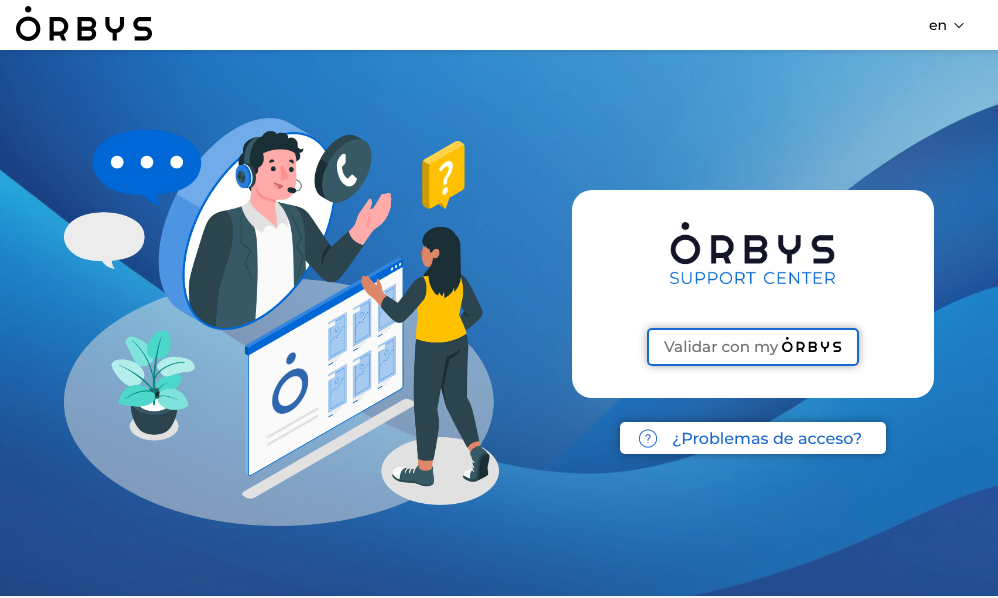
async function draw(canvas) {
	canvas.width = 998;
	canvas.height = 598;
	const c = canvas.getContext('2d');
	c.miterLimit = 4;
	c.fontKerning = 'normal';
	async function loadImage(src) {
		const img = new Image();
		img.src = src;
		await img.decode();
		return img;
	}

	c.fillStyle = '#f5f5f5';
	c.fillRect(0, 0, 998, 598);
	c.drawImage(await loadImage('img3.png'), 0, 50, 998, 546);
	c.fillStyle = '#00000029';
	c.filter = 'blur(3px)';
	c.beginPath();
	c.rect(3, 0, 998, 50);
	c.fill();
	c.filter = 'none';
	c.fillStyle = '#fff';
	c.fillRect(0, 0, 998, 50);
	c.drawImage(await loadImage('img1.png'), 16, 6, 136, 35);
	c.font = '500 14px Montserrat';
	c.fillStyle = '#000';
	c.fillText('en', 929, 30);
	c.drawImage(await loadImage('img2.png'), 954, 23, 10, 5);
	c.drawImage(await loadImage('img4.png'), 64, 118, 435, 408);
	c.fillStyle = '#fff';
	c.beginPath();
	c.roundRect(572, 190, 362, 208, 20);
	c.fill();
	c.drawImage(await loadImage('img5.png'), 670, 222, 165, 62);
	c.fillStyle = '#00000059';
	c.filter = 'blur(4.5px)';
	c.beginPath();
	c.roundRect(647, 328, 212, 38, 5);
	c.fill();
	c.filter = 'none';
	c.fillStyle = '#fff';
	c.beginPath();
	c.roundRect(648, 329, 210, 36, 4);
	c.fill();
	c.strokeStyle = '#1967d2';
	c.lineWidth = 2;
	c.stroke();
	c.font = '500 15.25px Montserrat';
	c.fillStyle = '#707070';
	c.fillText('Validar con', 664, 352);
	c.fillText('my', 754, 352);
	c.drawImage(await loadImage('img6.png'), 782, 337, 60, 15);
	c.fillStyle = '#00000059';
	c.filter = 'blur(4.5px)';
	c.beginPath();
	c.roundRect(620, 422, 266, 32, 5);
	c.fill();
	c.filter = 'none';
	c.fillStyle = '#fff';
	c.beginPath();
	c.roundRect(620, 422, 266, 32, 5);
	c.fill();
	c.drawImage(await loadImage('img7.png'), 638, 429, 20, 19);
	c.font = '500 16px Montserrat';
	c.fillStyle = '#1967d2';
	c.fillText('¿Problemas de acceso?', 672, 444);
}

draw(document.querySelector('canvas'));
